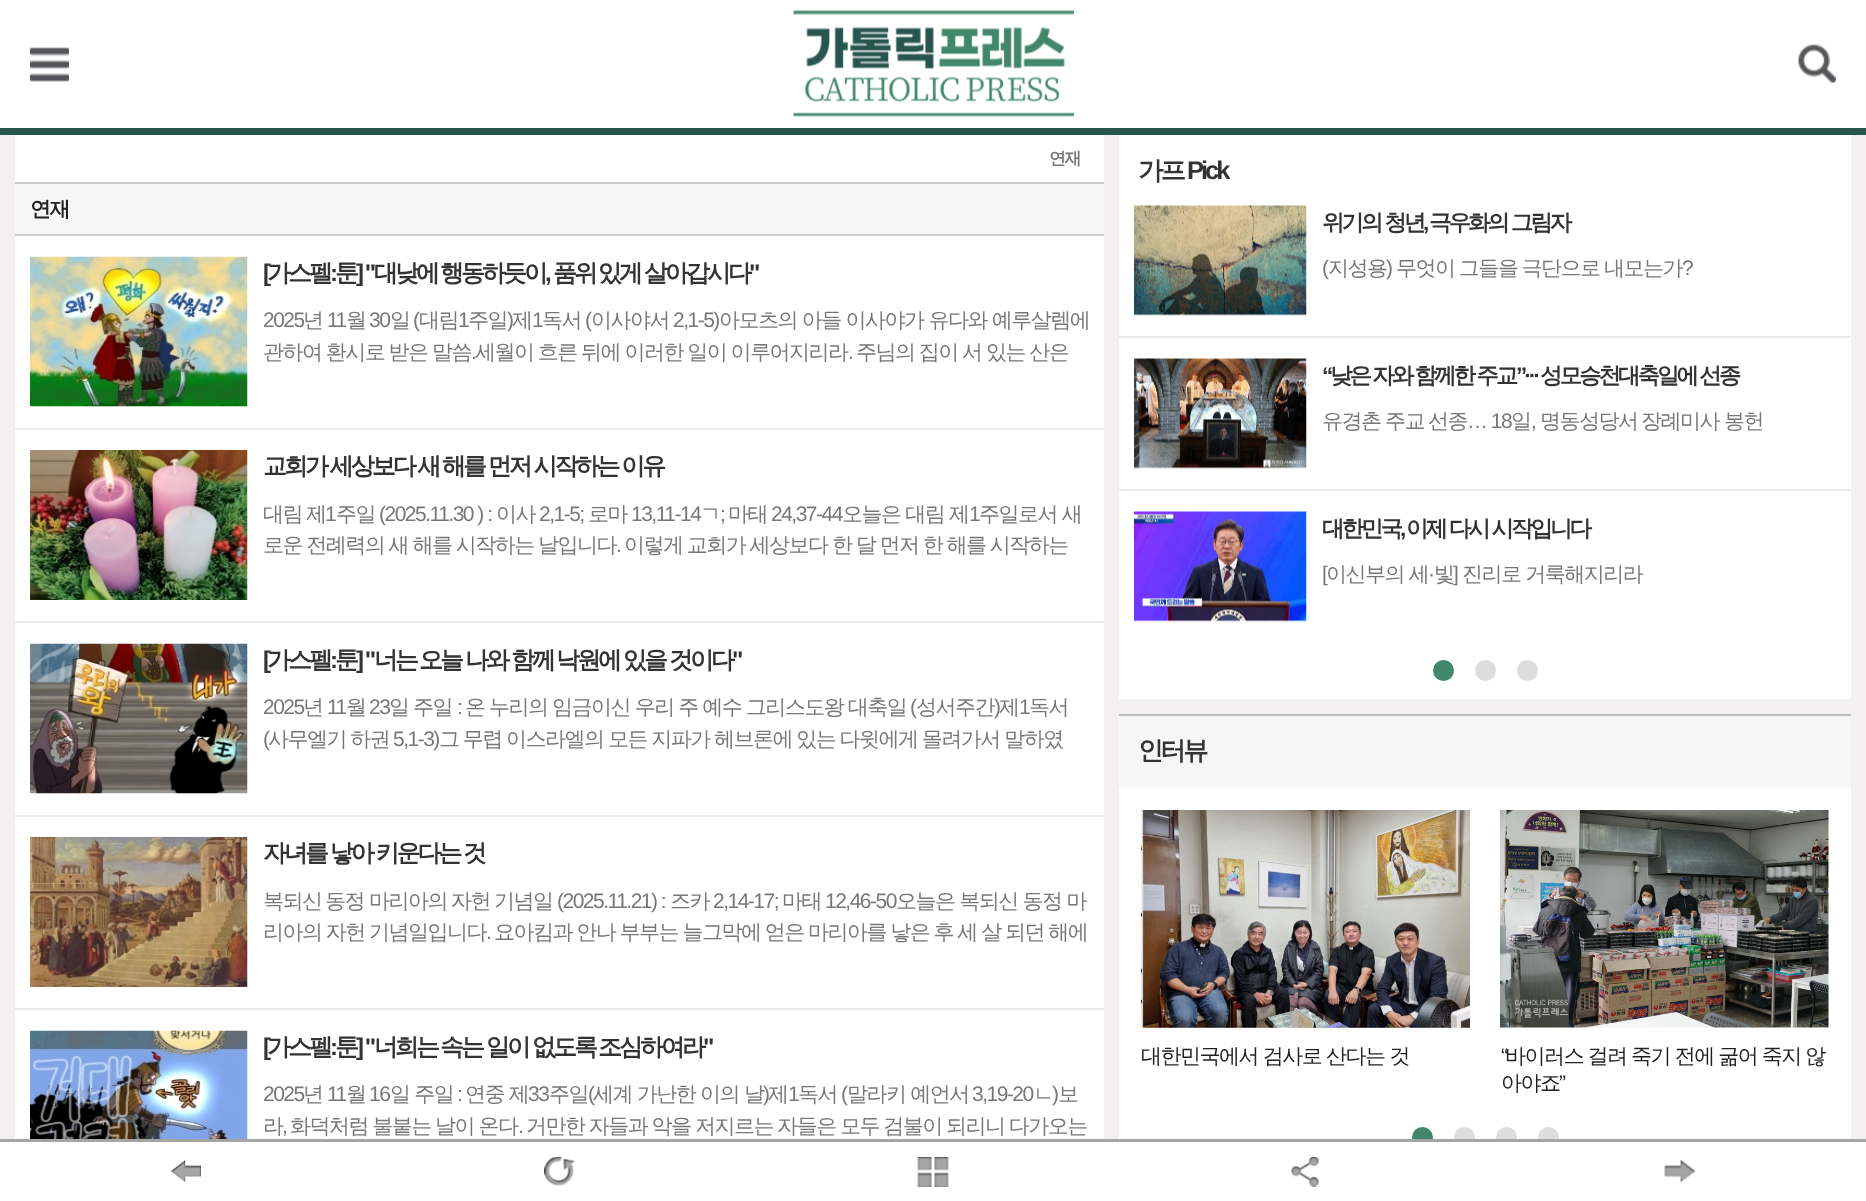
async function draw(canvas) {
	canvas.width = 1866;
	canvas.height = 1201;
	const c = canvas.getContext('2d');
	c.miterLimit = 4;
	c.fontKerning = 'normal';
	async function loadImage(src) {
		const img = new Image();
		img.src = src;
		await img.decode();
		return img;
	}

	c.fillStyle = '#f2f0f0';
	c.fillRect(0, 0, 1866, 1201);
	c.fillStyle = '#fff';
	c.fillRect(0, 0, 1866, 128);
	c.fillStyle = '#28554e';
	c.fillRect(0, 128, 1866, 7);
	c.drawImage(await loadImage('img1.png'), 30, 47, 39, 35);
	c.drawImage(await loadImage('img2.png'), 793, 9, 281, 108);
	c.drawImage(await loadImage('img3.png'), 1798, 44, 38, 39);
	c.fillStyle = '#fff';
	c.fillRect(15, 135, 1089, 1004);
	c.fillStyle = '#ccc';
	c.fillRect(15, 182, 1089, 2);
	c.letterSpacing = '-1.5px';
	c.font = 'bold 17px WenQuanYi Zen Hei';
	c.fillStyle = '#777';
	c.fillText('연재', 1049, 164);
	c.fillStyle = '#f6f6f6';
	c.fillRect(15, 184, 1089, 50);
	c.fillStyle = '#ccc';
	c.fillRect(15, 234, 1089, 2);
	c.font = 'bold 21px WenQuanYi Zen Hei';
	c.fillStyle = '#222';
	c.fillText('연재', 30, 216);
	c.fillStyle = '#ebebeb';
	c.fillRect(15, 428, 1089, 2);
	c.drawImage(await loadImage('img4.png'), 30, 256, 218, 151);
	c.letterSpacing = '-3px';
	c.font = 'bold 24px Liberation Sans';
	c.fillStyle = '#333';
	c.fillText('[', 263, 281);
	c.font = 'bold 24px WenQuanYi Zen Hei';
	c.fillText('가스펠', 267, 281);
	c.font = 'bold 24px Liberation Sans';
	c.fillText(':', 330, 281);
	c.font = 'bold 24px WenQuanYi Zen Hei';
	c.fillText('툰', 335, 281);
	c.font = 'bold 24px Liberation Sans';
	c.fillText('] "', 356, 281);
	c.font = 'bold 24px WenQuanYi Zen Hei';
	c.fillText('대낮에', 374, 281);
	c.fillText('행동하듯이', 440, 281);
	c.font = 'bold 24px Liberation Sans';
	c.fillText(',', 545, 281);
	c.font = 'bold 24px WenQuanYi Zen Hei';
	for (const [text, x, y] of [
		['품위', 553, 281],
		['있게', 598, 281],
		['살아갑시다', 644, 281],
	]) {
		c.fillText(text, x, y);
	}
	c.font = 'bold 24px Liberation Sans';
	c.fillText('"', 749, 281);
	c.letterSpacing = '-1.5px';
	c.font = '21px Liberation Sans';
	c.fillStyle = '#777';
	c.fillText('2025', 263, 327);
	c.font = '500 21px WenQuanYi Zen Hei';
	c.fillText('년', 303, 327);
	c.font = '21px Liberation Sans';
	c.fillText('11', 327, 327);
	c.font = '500 21px WenQuanYi Zen Hei';
	c.fillText('월', 346, 327);
	c.font = '21px Liberation Sans';
	c.fillText('30', 369, 327);
	c.font = '500 21px WenQuanYi Zen Hei';
	c.fillText('일', 390, 327);
	c.font = '21px Liberation Sans';
	c.fillText('(', 413, 327);
	c.font = '500 21px WenQuanYi Zen Hei';
	c.fillText('대림', 419, 327);
	c.font = '21px Liberation Sans';
	c.fillText('1', 458, 327);
	c.font = '500 21px WenQuanYi Zen Hei';
	c.fillText('주일', 468, 327);
	c.font = '21px Liberation Sans';
	c.fillText(')', 507, 327);
	c.font = '500 21px WenQuanYi Zen Hei';
	c.fillText('제', 512, 327);
	c.font = '21px Liberation Sans';
	c.fillText('1', 532, 327);
	c.font = '500 21px WenQuanYi Zen Hei';
	c.fillText('독서', 542, 327);
	c.font = '21px Liberation Sans';
	c.fillText('(', 585, 327);
	c.font = '500 21px WenQuanYi Zen Hei';
	c.fillText('이사야서', 591, 327);
	c.font = '21px Liberation Sans';
	c.fillText('2,1-5)', 673, 327);
	c.font = '500 21px WenQuanYi Zen Hei';
	c.fillText('아모츠의 아들 이사야가 유다와 예루살렘에', 719, 327);
	c.wordSpacing = '-0.5px';
	c.fillText('관하여 환시로 받은 말씀', 263, 359);
	c.wordSpacing = '0px';
	c.font = '21px Liberation Sans';
	c.fillText('.', 471, 359);
	c.wordSpacing = '-0.5px';
	c.font = '500 21px WenQuanYi Zen Hei';
	c.fillText('세월이 흐른 뒤에 이러한 일이 이루어지리라', 475, 359);
	c.wordSpacing = '0px';
	c.font = '21px Liberation Sans';
	c.fillText('.', 848, 359);
	c.wordSpacing = '-0.5px';
	c.font = '500 21px WenQuanYi Zen Hei';
	c.fillText('주님의 집이 서 있는 산은', 856, 359);
	c.fillStyle = '#ebebeb';
	c.fillRect(15, 621, 1089, 2);
	c.drawImage(await loadImage('img5.png'), 30, 450, 218, 150);
	c.letterSpacing = '-3px';
	c.font = 'bold 24px WenQuanYi Zen Hei';
	c.fillStyle = '#333';
	c.fillText('교회가 세상보다 새 해를 먼저 시작하는 이유', 263, 474);
	c.letterSpacing = '-1.5px';
	c.wordSpacing = '0px';
	c.font = '500 21px WenQuanYi Zen Hei';
	c.fillStyle = '#777';
	c.fillText('대림', 263, 521);
	c.fillText('제', 306, 521);
	c.font = '21px Liberation Sans';
	c.fillText('1', 325, 521);
	c.font = '500 21px WenQuanYi Zen Hei';
	c.fillText('주일', 336, 521);
	c.font = '21px Liberation Sans';
	c.fillText('(2025.11.30 ) :', 379, 521);
	c.font = '500 21px WenQuanYi Zen Hei';
	c.fillText('이사', 496, 521);
	c.font = '21px Liberation Sans';
	c.fillText('2,1-5;', 539, 521);
	c.font = '500 21px WenQuanYi Zen Hei';
	c.fillText('로마', 588, 521);
	c.font = '21px Liberation Sans';
	c.fillText('13,11-14', 631, 521);
	c.font = '500 21px WenQuanYi Zen Hei';
	c.fillText('ㄱ', 700, 521);
	c.font = '21px Liberation Sans';
	c.fillText(';', 720, 521);
	c.font = '500 21px WenQuanYi Zen Hei';
	c.fillText('마태', 728, 521);
	c.font = '21px Liberation Sans';
	c.fillText('24,37-44', 771, 521);
	c.font = '500 21px WenQuanYi Zen Hei';
	c.fillText('오늘은 대림 제', 842, 521);
	c.font = '21px Liberation Sans';
	c.fillText('1', 969, 521);
	c.font = '500 21px WenQuanYi Zen Hei';
	c.fillText('주일로서 새', 979, 521);
	c.wordSpacing = '-0.5px';
	c.fillText('로운 전례력의 새 해를 시작하는 날입니다', 263, 552);
	c.wordSpacing = '0px';
	c.font = '21px Liberation Sans';
	c.fillText('.', 616, 552);
	c.wordSpacing = '-0.5px';
	c.font = '500 21px WenQuanYi Zen Hei';
	c.fillText('이렇게 교회가 세상보다 한 달 먼저 한 해를 시작하는', 624, 552);
	c.fillStyle = '#ebebeb';
	c.fillRect(15, 815, 1089, 2);
	c.drawImage(await loadImage('img6.png'), 30, 643, 218, 151);
	c.letterSpacing = '-3px';
	c.wordSpacing = '0px';
	c.font = 'bold 24px Liberation Sans';
	c.fillStyle = '#333';
	c.fillText('[', 263, 668);
	c.font = 'bold 24px WenQuanYi Zen Hei';
	c.fillText('가스펠', 267, 668);
	c.font = 'bold 24px Liberation Sans';
	c.fillText(':', 330, 668);
	c.font = 'bold 24px WenQuanYi Zen Hei';
	c.fillText('툰', 335, 668);
	c.font = 'bold 24px Liberation Sans';
	c.fillText('] "', 356, 668);
	c.font = 'bold 24px WenQuanYi Zen Hei';
	for (const [text, x, y] of [
		['너는', 374, 668],
		['오늘', 419, 668],
		['나와', 465, 668],
		['함께', 511, 668],
		['낙원에', 556, 668],
		['있을', 623, 668],
		['것이다', 669, 668],
	]) {
		c.fillText(text, x, y);
	}
	c.font = 'bold 24px Liberation Sans';
	c.fillText('"', 732, 668);
	c.letterSpacing = '-1.5px';
	c.font = '21px Liberation Sans';
	c.fillStyle = '#777';
	c.fillText('2025', 263, 714);
	c.font = '500 21px WenQuanYi Zen Hei';
	c.fillText('년', 303, 714);
	c.font = '21px Liberation Sans';
	c.fillText('11', 327, 714);
	c.font = '500 21px WenQuanYi Zen Hei';
	c.fillText('월', 346, 714);
	c.font = '21px Liberation Sans';
	c.fillText('23', 369, 714);
	c.wordSpacing = '-0.25px';
	c.font = '500 21px WenQuanYi Zen Hei';
	c.fillText('일 주일', 389, 714);
	c.wordSpacing = '0px';
	c.font = '21px Liberation Sans';
	c.fillText(':', 457, 714);
	c.wordSpacing = '-0.25px';
	c.font = '500 21px WenQuanYi Zen Hei';
	c.fillText('온 누리의 임금이신 우리 주 예수 그리스도왕 대축일', 465, 714);
	c.wordSpacing = '0px';
	c.font = '21px Liberation Sans';
	c.fillText('(', 910, 714);
	c.font = '500 21px WenQuanYi Zen Hei';
	c.fillText('성서주간', 916, 714);
	c.font = '21px Liberation Sans';
	c.fillText(')', 994, 714);
	c.font = '500 21px WenQuanYi Zen Hei';
	c.fillText('제', 999, 714);
	c.font = '21px Liberation Sans';
	c.fillText('1', 1019, 714);
	c.font = '500 21px WenQuanYi Zen Hei';
	c.fillText('독서', 1029, 714);
	c.font = '21px Liberation Sans';
	c.fillText('(', 263, 746);
	c.wordSpacing = '-0.5px';
	c.font = '500 21px WenQuanYi Zen Hei';
	c.fillText('사무엘기 하권', 268, 746);
	c.wordSpacing = '0px';
	c.font = '21px Liberation Sans';
	c.fillText('5,1-3)', 393, 746);
	c.wordSpacing = '-0.5px';
	c.font = '500 21px WenQuanYi Zen Hei';
	c.fillText('그 무렵 이스라엘의 모든 지파가 헤브론에 있는 다윗에게 몰려가서 말하였', 439, 746);
	c.fillStyle = '#ebebeb';
	c.fillRect(15, 1008, 1089, 2);
	c.drawImage(await loadImage('img7.png'), 30, 837, 218, 150);
	c.letterSpacing = '-3px';
	c.font = 'bold 24px WenQuanYi Zen Hei';
	c.fillStyle = '#333';
	c.fillText('자녀를 낳아 키운다는 것', 263, 861);
	c.letterSpacing = '-1.5px';
	c.wordSpacing = '0px';
	c.font = '500 21px WenQuanYi Zen Hei';
	c.fillStyle = '#777';
	for (const [text, x, y] of [
		['복되신', 263, 908],
		['동정', 325, 908],
		['마리아의', 369, 908],
		['자헌', 451, 908],
		['기념일', 494, 908],
	]) {
		c.fillText(text, x, y);
	}
	c.font = '21px Liberation Sans';
	c.fillText('(2025.11.21) :', 557, 908);
	c.font = '500 21px WenQuanYi Zen Hei';
	c.fillText('즈카', 670, 908);
	c.font = '21px Liberation Sans';
	c.fillText('2,14-17;', 713, 908);
	c.font = '500 21px WenQuanYi Zen Hei';
	c.fillText('마태', 782, 908);
	c.font = '21px Liberation Sans';
	c.fillText('12,46-50', 825, 908);
	c.font = '500 21px WenQuanYi Zen Hei';
	c.fillText('오늘은 복되신 동정 마', 896, 908);
	c.wordSpacing = '-0.5px';
	c.fillText('리아의 자헌 기념일입니다', 263, 939);
	c.wordSpacing = '0px';
	c.font = '21px Liberation Sans';
	c.fillText('.', 486, 939);
	c.wordSpacing = '-0.5px';
	c.font = '500 21px WenQuanYi Zen Hei';
	c.fillText('요아킴과 안나 부부는 늘그막에 얻은 마리아를 낳은 후 세 살 되던 해에', 494, 939);
	c.drawImage(await loadImage('img8.png'), 30, 1030, 218, 109);
	c.letterSpacing = '-3px';
	c.wordSpacing = '0px';
	c.font = 'bold 24px Liberation Sans';
	c.fillStyle = '#333';
	c.fillText('[', 263, 1055);
	c.font = 'bold 24px WenQuanYi Zen Hei';
	c.fillText('가스펠', 267, 1055);
	c.font = 'bold 24px Liberation Sans';
	c.fillText(':', 330, 1055);
	c.font = 'bold 24px WenQuanYi Zen Hei';
	c.fillText('툰', 335, 1055);
	c.font = 'bold 24px Liberation Sans';
	c.fillText('] "', 356, 1055);
	c.font = 'bold 24px WenQuanYi Zen Hei';
	for (const [text, x, y] of [
		['너희는', 374, 1055],
		['속는', 440, 1055],
		['일이', 486, 1055],
		['없도록', 532, 1055],
		['조심하여라', 598, 1055],
	]) {
		c.fillText(text, x, y);
	}
	c.font = 'bold 24px Liberation Sans';
	c.fillText('"', 703, 1055);
	c.letterSpacing = '-1.5px';
	c.font = '21px Liberation Sans';
	c.fillStyle = '#777';
	c.fillText('2025', 263, 1101);
	c.font = '500 21px WenQuanYi Zen Hei';
	c.fillText('년', 303, 1101);
	c.font = '21px Liberation Sans';
	c.fillText('11', 327, 1101);
	c.font = '500 21px WenQuanYi Zen Hei';
	c.fillText('월', 346, 1101);
	c.font = '21px Liberation Sans';
	c.fillText('16', 369, 1101);
	c.font = '500 21px WenQuanYi Zen Hei';
	c.fillText('일 주일', 390, 1101);
	c.font = '21px Liberation Sans';
	c.fillText(':', 457, 1101);
	c.font = '500 21px WenQuanYi Zen Hei';
	c.fillText('연중 제', 465, 1101);
	c.font = '21px Liberation Sans';
	c.fillText('33', 528, 1101);
	c.font = '500 21px WenQuanYi Zen Hei';
	c.fillText('주일', 549, 1101);
	c.font = '21px Liberation Sans';
	c.fillText('(', 588, 1101);
	c.font = '500 21px WenQuanYi Zen Hei';
	c.fillText('세계 가난한 이의 날', 593, 1101);
	c.font = '21px Liberation Sans';
	c.fillText(')', 763, 1101);
	c.font = '500 21px WenQuanYi Zen Hei';
	c.fillText('제', 768, 1101);
	c.font = '21px Liberation Sans';
	c.fillText('1', 788, 1101);
	c.font = '500 21px WenQuanYi Zen Hei';
	c.fillText('독서', 798, 1101);
	c.font = '21px Liberation Sans';
	c.fillText('(', 841, 1101);
	c.font = '500 21px WenQuanYi Zen Hei';
	c.fillText('말라키 예언서', 847, 1101);
	c.font = '21px Liberation Sans';
	c.fillText('3,19-20', 972, 1101);
	c.font = '500 21px WenQuanYi Zen Hei';
	c.fillText('ㄴ', 1033, 1101);
	c.font = '21px Liberation Sans';
	c.fillText(')', 1052, 1101);
	c.font = '500 21px WenQuanYi Zen Hei';
	c.fillText('보', 1058, 1101);
	c.fillText('라', 263, 1133);
	c.font = '21px Liberation Sans';
	c.fillText(',', 282, 1133);
	c.wordSpacing = '-0.5px';
	c.font = '500 21px WenQuanYi Zen Hei';
	c.fillText('화덕처럼 불붙는 날이 온다', 290, 1133);
	c.wordSpacing = '0px';
	c.font = '21px Liberation Sans';
	c.fillText('.', 518, 1133);
	c.wordSpacing = '-0.5px';
	c.font = '500 21px WenQuanYi Zen Hei';
	c.fillText('거만한 자들과 악을 저지르는 자들은 모두 검불이 되리니 다가오는', 526, 1133);
	c.fillStyle = '#fff';
	c.fillRect(1119, 135, 732, 564);
	c.letterSpacing = '-3px';
	c.wordSpacing = '0px';
	c.font = 'bold 25.5px WenQuanYi Zen Hei';
	c.fillStyle = '#333';
	c.fillText('가프', 1138, 179);
	c.font = 'bold 25.5px Liberation Sans';
	c.fillText('Pick', 1187, 179);
	c.fillStyle = '#ebebeb';
	c.fillRect(1119, 336, 732, 2);
	c.drawImage(await loadImage('img9.png'), 1134, 205, 173, 111);
	c.font = 'bold 22.5px WenQuanYi Zen Hei';
	c.fillStyle = '#333';
	c.fillText('위기의 청년', 1322, 230);
	c.font = 'bold 22.5px Liberation Sans';
	c.fillText(',', 1423, 230);
	c.font = 'bold 22.5px WenQuanYi Zen Hei';
	c.fillText('극우화의 그림자', 1429, 230);
	c.letterSpacing = '-1.5px';
	c.font = '21px Liberation Sans';
	c.fillStyle = '#777';
	c.fillText('(', 1322, 275);
	c.font = '500 21px WenQuanYi Zen Hei';
	c.fillText('지성용', 1328, 275);
	c.font = '21px Liberation Sans';
	c.fillText(')', 1386, 275);
	c.wordSpacing = '-0.5px';
	c.font = '500 21px WenQuanYi Zen Hei';
	c.fillText('무엇이 그들을 극단으로 내모는가', 1396, 275);
	c.wordSpacing = '0px';
	c.font = '21px Liberation Sans';
	c.fillText('?', 1682, 275);
	c.fillStyle = '#ebebeb';
	c.fillRect(1119, 489, 732, 2);
	c.drawImage(await loadImage('img10.png'), 1134, 358, 173, 111);
	c.letterSpacing = '-3px';
	c.font = 'bold 22.5px Liberation Sans';
	c.fillStyle = '#333';
	c.fillText('“', 1322, 383);
	c.wordSpacing = '-0.5px';
	c.font = 'bold 22.5px WenQuanYi Zen Hei';
	c.fillText('낮은 자와 함께한 주교', 1330, 383);
	c.wordSpacing = '0px';
	c.font = 'bold 22.5px Liberation Sans';
	c.fillText('”···', 1516, 383);
	c.wordSpacing = '-0.5px';
	c.font = 'bold 22.5px WenQuanYi Zen Hei';
	c.fillText('성모승천대축일에 선종', 1540, 383);
	c.letterSpacing = '-1.5px';
	c.wordSpacing = '0px';
	c.font = '500 21px WenQuanYi Zen Hei';
	c.fillStyle = '#777';
	for (const [text, x, y] of [
		['유경촌', 1322, 428],
		['주교', 1385, 428],
		['선종', 1428, 428],
	]) {
		c.fillText(text, x, y);
	}
	c.font = '21px Liberation Sans';
	c.fillText('… 18', 1467, 428);
	c.font = '500 21px WenQuanYi Zen Hei';
	c.fillText('일', 1511, 428);
	c.font = '21px Liberation Sans';
	c.fillText(',', 1531, 428);
	c.font = '500 21px WenQuanYi Zen Hei';
	for (const [text, x, y] of [
		['명동성당서', 1540, 428],
		['장례미사', 1641, 428],
		['봉헌', 1724, 428],
	]) {
		c.fillText(text, x, y);
	}
	c.drawImage(await loadImage('img11.png'), 1134, 511, 173, 111);
	c.letterSpacing = '-3px';
	c.font = 'bold 22.5px WenQuanYi Zen Hei';
	c.fillStyle = '#333';
	c.fillText('대한민국', 1322, 536);
	c.font = 'bold 22.5px Liberation Sans';
	c.fillText(',', 1400, 536);
	c.font = 'bold 22.5px WenQuanYi Zen Hei';
	c.fillText('이제 다시 시작입니다', 1406, 536);
	c.letterSpacing = '-1.5px';
	c.font = '21px Liberation Sans';
	c.fillStyle = '#777';
	c.fillText('[', 1322, 581);
	c.font = '500 21px WenQuanYi Zen Hei';
	c.fillText('이신부의 세', 1326, 581);
	c.font = '21px Liberation Sans';
	c.fillText('·', 1428, 581);
	c.font = '500 21px WenQuanYi Zen Hei';
	c.fillText('빛', 1434, 581);
	c.font = '21px Liberation Sans';
	c.fillText(']', 1453, 581);
	c.font = '500 21px WenQuanYi Zen Hei';
	c.fillText('진리로 거룩해지리라', 1462, 581);
	c.fillStyle = '#41876b';
	c.beginPath();
	c.arc(1443.5, 670.5, 10.5, 0, 2 * Math.PI);
	c.fill();
	c.fillStyle = '#ddd';
	c.beginPath();
	c.arc(1485.5, 670.5, 10.5, 0, 2 * Math.PI);
	c.fill();
	c.beginPath();
	c.arc(1527.5, 670.5, 10.5, 0, 2 * Math.PI);
	c.fill();
	for (const [x, y, w, h, color] of [
		[1119, 788, 732, 351, '#fff'],
		[1119, 714, 732, 2, '#bebebe'],
		[1119, 716, 732, 72, '#f6f6f6'],
	]) {
		c.fillStyle = color;
		c.fillRect(x, y, w, h);
	}
	c.letterSpacing = '-3px';
	c.font = 'bold 25.5px WenQuanYi Zen Hei';
	c.fillStyle = '#333';
	c.fillText('인터뷰', 1138, 759);
	c.drawImage(await loadImage('img12.png'), 1141, 810, 329, 218);
	c.save();
	c.beginPath();
	c.rect(1142, 1043, 328, 27);
	c.clip();
	c.letterSpacing = '-1.5px';
	c.font = '500 21px WenQuanYi Zen Hei';
	c.fillStyle = '#222';
	c.fillText('대한민국에서 검사로 산다는 것', 1141, 1063);
	c.restore();
	c.drawImage(await loadImage('img13.png'), 1500, 810, 329, 218);
	c.letterSpacing = '-1.5px';
	c.font = '21px Liberation Sans';
	c.fillStyle = '#222';
	c.fillText('“', 1501, 1063);
	c.wordSpacing = '-0.25px';
	c.font = '500 21px WenQuanYi Zen Hei';
	c.fillText('바이러스 걸려 죽기 전에 굶어 죽지 않', 1505, 1063);
	c.wordSpacing = '0px';
	c.fillText('아야죠', 1501, 1090);
	c.font = '21px Liberation Sans';
	c.fillText('”', 1559, 1090);
	c.fillStyle = '#41876b';
	c.beginPath();
	c.arc(1422.5, 1137.5, 10.5, 0, 2 * Math.PI);
	c.fill();
	c.fillStyle = '#ddd';
	c.beginPath();
	c.arc(1464.5, 1137.5, 10.5, 0, 2 * Math.PI);
	c.fill();
	c.beginPath();
	c.arc(1506.5, 1137.5, 10.5, 0, 2 * Math.PI);
	c.fill();
	c.beginPath();
	c.arc(1548.5, 1137.5, 10.5, 0, 2 * Math.PI);
	c.fill();
	c.fillStyle = '#fff';
	c.fillRect(0, 1142, 1866, 59);
	c.fillStyle = '#a5a5a5';
	c.fillRect(0, 1139, 1866, 3);
	c.drawImage(await loadImage('img14.png'), 171, 1160, 30, 22);
	c.drawImage(await loadImage('img15.png'), 544, 1157, 31, 29);
	c.drawImage(await loadImage('img16.png'), 917, 1157, 32, 30);
	c.drawImage(await loadImage('img17.png'), 1291, 1157, 28, 30);
	c.drawImage(await loadImage('img18.png'), 1664, 1160, 31, 23);
}

draw(document.querySelector('canvas'));
